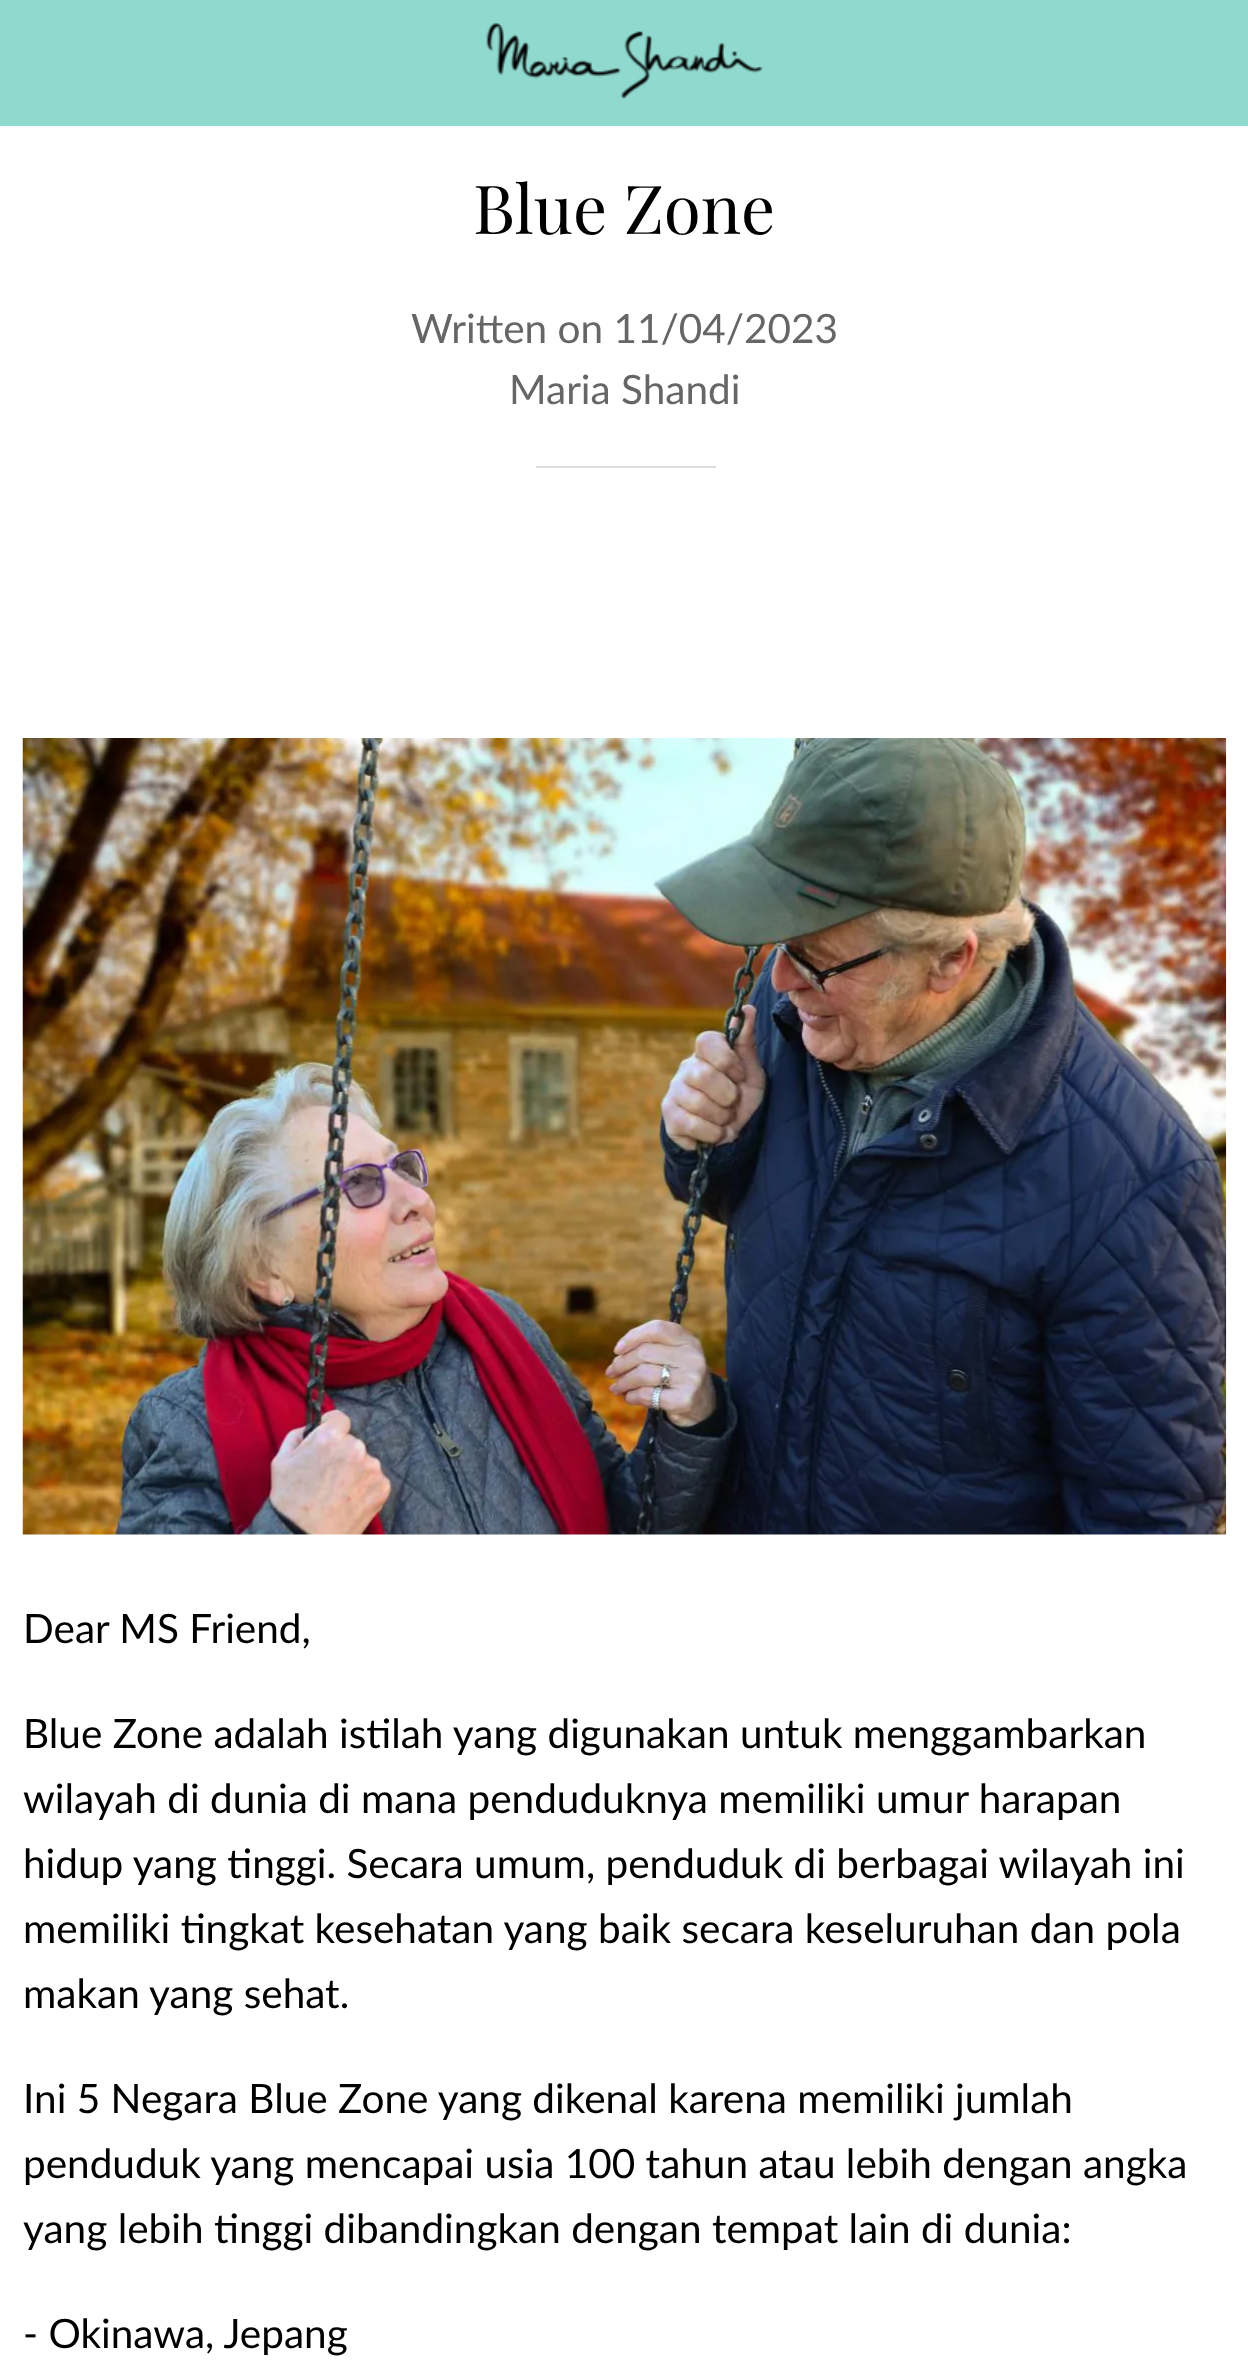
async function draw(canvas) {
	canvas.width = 1248;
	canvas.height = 2369;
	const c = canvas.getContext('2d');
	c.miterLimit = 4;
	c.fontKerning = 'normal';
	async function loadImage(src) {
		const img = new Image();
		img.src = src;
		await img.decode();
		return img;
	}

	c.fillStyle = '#fff';
	c.fillRect(0, 0, 1248, 2369);
	c.fillStyle = '#90d9ce';
	c.fillRect(0, 0, 1248, 126);
	c.drawImage(await loadImage('img1.png'), 486, 23, 277, 76);
	c.font = '67.5px Playfair Display';
	c.fillStyle = '#000';
	c.fillText('Blue Zone', 473, 234);
	c.font = '40.5px Lato';
	c.fillStyle = '#666';
	c.fillText('Written on 11/04/2023', 411, 343);
	c.fillText('Maria Shandi', 509, 404);
	c.fillStyle = '#ddd';
	c.fillRect(536, 466, 180, 2);
	c.drawImage(await loadImage('img2.png'), 22, 738, 1205, 797);
	c.fillStyle = '#000';
	for (const [text, x, y] of [
		['Dear MS Friend,', 23, 1643],
		['Blue Zone adalah istilah yang digunakan untuk menggambarkan', 23, 1748],
		['wilayah di dunia di mana penduduknya memiliki umur harapan', 23, 1813],
		['hidup yang tinggi. Secara umum, penduduk di berbagai wilayah ini', 23, 1878],
		['memiliki tingkat kesehatan yang baik secara keseluruhan dan pola', 23, 1943],
		['makan yang sehat.', 23, 2008],
		['Ini 5 Negara Blue Zone yang dikenal karena memiliki jumlah', 23, 2113],
		['penduduk yang mencapai usia 100 tahun atau lebih dengan angka', 23, 2178],
		['yang lebih tinggi dibandingkan dengan tempat lain di dunia:', 23, 2243],
		['- Okinawa, Jepang', 23, 2348],
	]) {
		c.fillText(text, x, y);
	}
}

draw(document.querySelector('canvas'));
